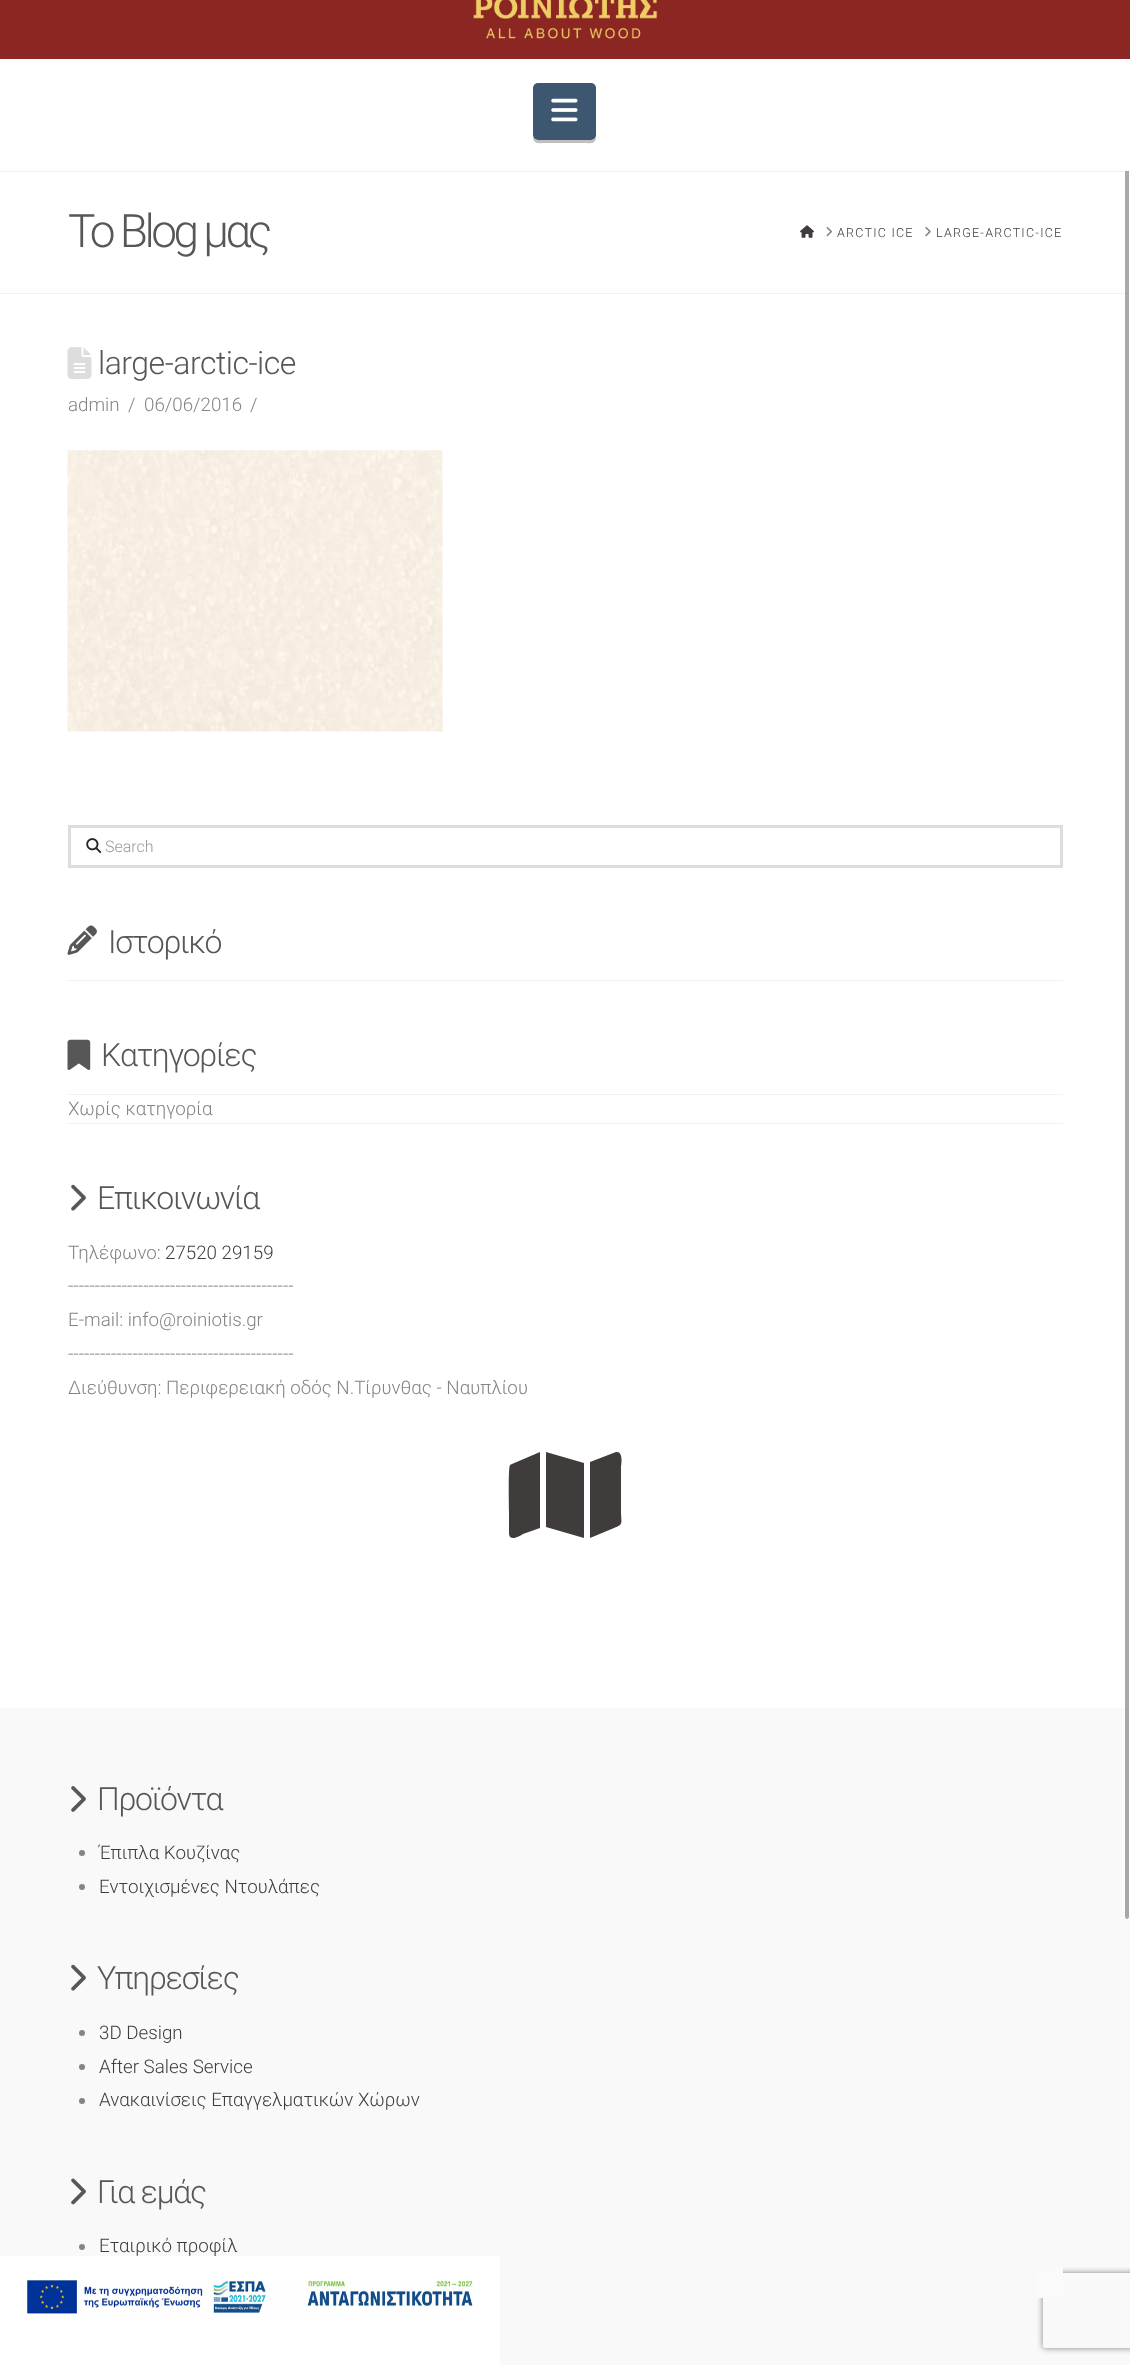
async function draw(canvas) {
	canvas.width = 1130;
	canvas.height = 2365;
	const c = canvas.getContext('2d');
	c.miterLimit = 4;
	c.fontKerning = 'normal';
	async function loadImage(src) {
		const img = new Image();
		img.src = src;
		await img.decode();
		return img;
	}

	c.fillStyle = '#fff';
	c.fillRect(0, 0, 1130, 2365);
	c.fillStyle = '#8b2622';
	c.fillRect(0, 0, 1130, 59);
	c.drawImage(await loadImage('img1.png'), 473, 0, 185, 39);
	for (const [x, y, w, h, color] of [
		[0, 171, 1130, 1, '#f2f2f2'],
		[0, 293, 1130, 1, '#f2f2f2'],
		[0, 1708, 1130, 657, '#f9f9f9'],
	]) {
		c.fillStyle = color;
		c.fillRect(x, y, w, h);
	}
	c.fillStyle = '#42424273';
	c.beginPath();
	c.roundRect(1125, 80, 4, 1839, 2);
	c.fill();
	c.beginPath();
	c.roundRect(1124.5, 79.5, 5, 1840, 2.5);
	c.strokeStyle = '#ffffff73';
	c.stroke();
	c.fillStyle = '#fff';
	c.fillRect(1125, 80, 4, 91);
	c.fillStyle = '#bfbfbf';
	c.beginPath();
	c.moveTo(533, 137);
	c.bezierCurveTo(533, 145, 541, 143, 547, 143);
	c.lineTo(582, 143);
	c.bezierCurveTo(589, 143, 596, 145, 596, 137);
	c.bezierCurveTo(595, 139, 593, 140, 591, 140);
	c.lineTo(538, 140);
	c.bezierCurveTo(536, 140, 534, 139, 533, 137);
	c.closePath();
	c.fill();
	c.fillStyle = '#3e5771';
	c.beginPath();
	c.roundRect(533, 83, 63, 57, 5);
	c.fill();
	c.drawImage(await loadImage('img2.png'), 551, 98, 27, 24);
	c.letterSpacing = '-3.5px';
	c.font = '300 46px Roboto';
	c.fillStyle = '#575757';
	c.fillText('Το Blog μας', 68, 247);
	c.drawImage(await loadImage('img3.png'), 800, 225, 14, 13);
	c.drawImage(await loadImage('img4.png'), 826, 226, 6, 11);
	c.letterSpacing = '1.25px';
	c.font = '300 12.5px Roboto';
	c.fillStyle = '#3f3c3b';
	c.fillText('ARCTIC ICE', 837, 237);
	c.drawImage(await loadImage('img5.png'), 925, 227, 6, 10);
	c.fillText('LARGE-ARCTIC-ICE', 936, 237);
	c.drawImage(await loadImage('img6.png'), 67, 347, 25, 32);
	c.letterSpacing = '-0.5px';
	c.font = '300 32px Roboto';
	c.fillStyle = '#575757';
	c.fillText('large-arctic-ice', 98, 374);
	c.letterSpacing = '0px';
	c.font = '300 18.75px Roboto';
	c.fillStyle = '#848484';
	for (const [text, x, y] of [
		['admin', 68, 411],
		['/', 128, 411],
		['06/06/2016', 144, 411],
		['/', 250, 411],
	]) {
		c.fillText(text, x, y);
	}
	c.drawImage(await loadImage('img7.png'), 67, 450, 376, 282);
	c.strokeStyle = '#ddd';
	c.lineWidth = 3;
	c.strokeRect(69.5, 826.5, 992, 40);
	c.drawImage(await loadImage('img8.png'), 86, 838, 16, 16);
	c.font = '300 16px Roboto';
	c.fillStyle = '#999';
	c.fillText('Search', 105, 852);
	c.drawImage(await loadImage('img9.png'), 67, 925, 30, 30);
	c.letterSpacing = '-1.25px';
	c.font = '300 32px Roboto';
	c.fillStyle = '#575757';
	c.fillText('Ιστορικό', 108, 953);
	c.fillStyle = '#f2f2f2';
	c.fillRect(68, 980, 995, 1);
	c.drawImage(await loadImage('img10.png'), 67, 1039, 24, 31);
	c.fillStyle = '#575757';
	c.fillText('Kατηγορίες', 101, 1066);
	c.fillStyle = '#f2f2f2';
	c.fillRect(68, 1123, 995, 1);
	c.fillRect(68, 1094, 995, 1);
	c.letterSpacing = '0px';
	c.font = '300 18.75px Roboto';
	c.fillStyle = '#848484';
	c.fillText('Χωρίς κατηγορία', 68, 1115);
	c.drawImage(await loadImage('img11.png'), 71, 1184, 15, 27);
	c.letterSpacing = '-1.25px';
	c.font = '300 32px Roboto';
	c.fillStyle = '#575757';
	c.fillText('Επικοινωνία', 97, 1209);
	c.letterSpacing = '0px';
	c.font = '300 18.75px Roboto';
	c.fillStyle = '#848484';
	c.fillText('Τηλέφωνο:', 68, 1259);
	c.fillStyle = '#3f3c3b';
	c.fillText('27520 29159', 165, 1259);
	c.fillStyle = '#848484';
	for (const [text, x, y] of [
		['------------------------------------------', 68, 1292],
		['E-mail: info@roiniotis.gr', 68, 1326],
		['------------------------------------------', 68, 1360],
		['Διεύθυνση: Περιφερειακή οδός Ν.Τίρυνθας - Ναυπλίου', 68, 1394],
	]) {
		c.fillText(text, x, y);
	}
	c.fillStyle = '#3f3c3b';
	c.beginPath();
	c.moveTo(584, 1538);
	c.lineTo(546, 1527);
	c.lineTo(584, 1538);
	c.lineTo(546, 1527);
	c.lineTo(546, 1452);
	c.lineTo(584, 1463);
	c.closePath();
	c.moveTo(590, 1538);
	c.lineTo(590, 1462);
	c.lineTo(590, 1538);
	c.lineTo(590, 1462);
	c.lineTo(616, 1452);
	c.bezierCurveTo(624, 1451, 621, 1466, 621, 1468);
	c.lineTo(621, 1511);
	c.bezierCurveTo(621, 1524, 624, 1524, 614, 1528);
	c.closePath();
	c.moveTo(512, 1464);
	c.lineTo(540, 1452);
	c.lineTo(512, 1464);
	c.lineTo(540, 1452);
	c.lineTo(540, 1528);
	c.lineTo(523, 1534);
	c.bezierCurveTo(520, 1536, 510, 1542, 509, 1534);
	c.lineTo(509, 1511);
	c.bezierCurveTo(509, 1505, 508, 1468, 510, 1465);
	c.closePath();
	c.fill();
	c.drawImage(await loadImage('img12.png'), 71, 1786, 15, 26);
	c.letterSpacing = '-1.25px';
	c.font = '300 32px Roboto';
	c.fillStyle = '#575757';
	c.fillText('Προϊόντα', 97, 1810);
	c.fillStyle = '#848484';
	c.beginPath();
	c.arc(82, 1853, 3, 0, 2 * Math.PI);
	c.fill();
	c.letterSpacing = '0px';
	c.font = '300 18.75px Roboto';
	c.fillStyle = '#3f3c3b';
	c.fillText('Έπιπλα Κουζίνας', 99, 1859);
	c.fillStyle = '#848484';
	c.beginPath();
	c.arc(82, 1887, 3, 0, 2 * Math.PI);
	c.fill();
	c.fillStyle = '#3f3c3b';
	c.fillText('Εντοιχισμένες Ντουλάπες', 99, 1893);
	c.drawImage(await loadImage('img13.png'), 71, 1964, 15, 27);
	c.letterSpacing = '-1.25px';
	c.font = '300 32px Roboto';
	c.fillStyle = '#575757';
	c.fillText('Υπηρεσίες', 97, 1989);
	c.fillStyle = '#848484';
	c.beginPath();
	c.arc(82, 2033, 3, 0, 2 * Math.PI);
	c.fill();
	c.letterSpacing = '0px';
	c.font = '300 18.75px Roboto';
	c.fillStyle = '#3f3c3b';
	c.fillText('3D Design', 99, 2039);
	c.fillStyle = '#848484';
	c.beginPath();
	c.arc(82, 2067, 3, 0, 2 * Math.PI);
	c.fill();
	c.fillStyle = '#3f3c3b';
	c.fillText('After Sales Service', 99, 2073);
	c.fillStyle = '#848484';
	c.beginPath();
	c.arc(82, 2101, 3, 0, 2 * Math.PI);
	c.fill();
	c.fillStyle = '#3f3c3b';
	c.fillText('Ανακαινίσεις Επαγγελματικών Χώρων', 99, 2106);
	c.drawImage(await loadImage('img14.png'), 71, 2178, 15, 27);
	c.letterSpacing = '-1.25px';
	c.font = '300 32px Roboto';
	c.fillStyle = '#575757';
	c.fillText('Για εμάς', 97, 2203);
	c.fillStyle = '#848484';
	c.beginPath();
	c.arc(82, 2247, 3, 0, 2 * Math.PI);
	c.fill();
	c.letterSpacing = '0px';
	c.font = '300 18.75px Roboto';
	c.fillStyle = '#3f3c3b';
	c.fillText('Εταιρικό προφίλ', 99, 2252);
	c.save();
	c.beginPath();
	c.moveTo(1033, 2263);
	c.lineTo(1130, 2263);
	c.lineTo(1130, 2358);
	c.lineTo(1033, 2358);
	c.closePath();
	c.moveTo(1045.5, 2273);
	c.lineTo(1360.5, 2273);
	c.bezierCurveTo(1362, 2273, 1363, 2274, 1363, 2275.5);
	c.lineTo(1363, 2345.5);
	c.bezierCurveTo(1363, 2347, 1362, 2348, 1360.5, 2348);
	c.lineTo(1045.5, 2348);
	c.bezierCurveTo(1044, 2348, 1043, 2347, 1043, 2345.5);
	c.lineTo(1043, 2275.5);
	c.bezierCurveTo(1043, 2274, 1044, 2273, 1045.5, 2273);
	c.closePath();
	c.clip('evenodd');
	c.fillStyle = '#808080';
	c.filter = 'blur(3px)';
	c.beginPath();
	c.roundRect(1043, 2273, 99, 75, 2.5);
	c.fill();
	c.filter = 'none';
	c.restore();
	c.fillStyle = '#fafafa';
	c.fillRect(1036, 2266, 27, 32);
	c.fillStyle = '#fff';
	c.fillRect(0, 2256, 500, 109);
	c.drawImage(await loadImage('img15.png'), 27, 2280, 446, 34);
}

draw(document.querySelector('canvas'));
